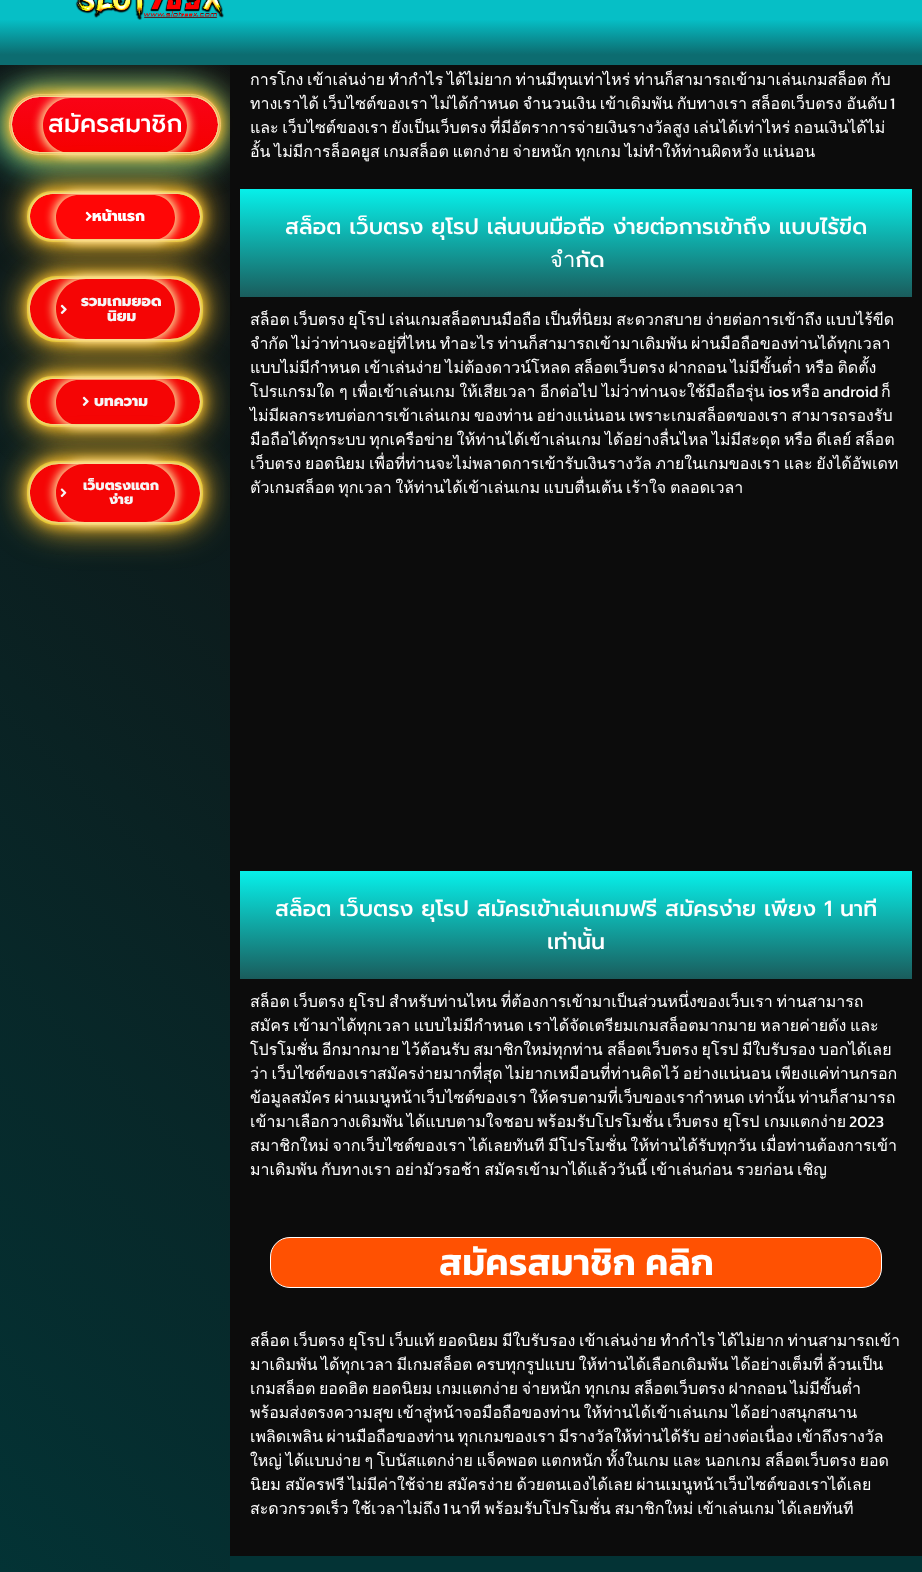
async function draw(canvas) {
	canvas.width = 922;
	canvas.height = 1572;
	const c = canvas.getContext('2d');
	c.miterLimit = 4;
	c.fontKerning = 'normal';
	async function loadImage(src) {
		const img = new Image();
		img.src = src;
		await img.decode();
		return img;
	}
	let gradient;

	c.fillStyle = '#033335';
	c.fillRect(0, 0, 922, 1572);
	gradient = c.createLinearGradient(-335, 1237, 566, 335);
	gradient.addColorStop(0, '#033335');
	gradient.addColorStop(1, '#111');
	c.fillStyle = gradient;
	c.fillRect(0, 65, 230, 1507);
	c.fillStyle = '#0c0c0c';
	c.fillRect(230, 65, 692, 1491);
	gradient = c.createLinearGradient(576, 189, 576, 297);
	gradient.addColorStop(0, '#07f0ea');
	gradient.addColorStop(1, '#1a5c5c');
	c.fillStyle = gradient;
	c.fillRect(240, 189, 672, 108);
	c.save();
	c.beginPath();
	c.rect(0, 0, 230, 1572);
	c.clip();
	c.beginPath();
	c.moveTo(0, 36);
	c.lineTo(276, 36);
	c.lineTo(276, 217);
	c.lineTo(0, 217);
	c.closePath();
	c.moveTo(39.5, 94);
	c.lineTo(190.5, 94);
	c.bezierCurveTo(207.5, 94, 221, 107.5, 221, 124.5);
	c.bezierCurveTo(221, 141.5, 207.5, 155, 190.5, 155);
	c.lineTo(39.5, 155);
	c.bezierCurveTo(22.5, 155, 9, 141.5, 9, 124.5);
	c.bezierCurveTo(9, 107.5, 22.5, 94, 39.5, 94);
	c.closePath();
	c.clip('evenodd');
	c.fillStyle = '#00fcff';
	c.filter = 'blur(19.5px)';
	c.beginPath();
	c.roundRect(4, 96, 212, 61, 30.5);
	c.fill();
	c.filter = 'none';
	c.restore();
	c.save();
	c.beginPath();
	c.roundRect(9, 94, 212, 61, 30.5);
	c.clip();
	gradient = c.createLinearGradient(115, 152, 115, 97);
	gradient.addColorStop(0, '#f60000');
	gradient.addColorStop(1, '#f90317');
	c.fillStyle = gradient;
	c.fillRect(9, 97, 212, 55);
	c.restore();
	c.beginPath();
	c.roundRect(9.5, 94.5, 211, 60, 30);
	c.strokeStyle = '#fafafa';
	c.stroke();
	c.beginPath();
	c.roundRect(11.5, 96.5, 207, 56, 28);
	c.stroke();
	c.save();
	c.beginPath();
	c.rect(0, 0, 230, 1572);
	c.clip();
	c.beginPath();
	c.moveTo(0, 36);
	c.lineTo(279, 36);
	c.lineTo(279, 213);
	c.lineTo(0, 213);
	c.closePath();
	c.moveTo(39.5, 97);
	c.lineTo(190.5, 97);
	c.bezierCurveTo(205.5, 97, 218, 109.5, 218, 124.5);
	c.bezierCurveTo(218, 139.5, 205.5, 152, 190.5, 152);
	c.lineTo(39.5, 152);
	c.bezierCurveTo(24.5, 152, 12, 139.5, 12, 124.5);
	c.bezierCurveTo(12, 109.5, 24.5, 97, 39.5, 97);
	c.closePath();
	c.clip('evenodd');
	c.fillStyle = '#ebb429';
	c.filter = 'blur(20px)';
	c.beginPath();
	c.roundRect(12, 97, 206, 55, 27.5);
	c.fill();
	c.filter = 'none';
	c.restore();
	c.save();
	c.beginPath();
	c.rect(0, 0, 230, 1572);
	c.clip();
	c.beginPath();
	c.moveTo(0, 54);
	c.lineTo(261, 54);
	c.lineTo(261, 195);
	c.lineTo(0, 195);
	c.closePath();
	c.moveTo(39.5, 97);
	c.lineTo(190.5, 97);
	c.bezierCurveTo(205.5, 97, 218, 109.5, 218, 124.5);
	c.bezierCurveTo(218, 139.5, 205.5, 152, 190.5, 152);
	c.lineTo(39.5, 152);
	c.bezierCurveTo(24.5, 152, 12, 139.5, 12, 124.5);
	c.bezierCurveTo(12, 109.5, 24.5, 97, 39.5, 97);
	c.closePath();
	c.clip('evenodd');
	c.fillStyle = '#ebb429';
	c.filter = 'blur(14px)';
	c.beginPath();
	c.roundRect(12, 97, 206, 55, 27.5);
	c.fill();
	c.filter = 'none';
	c.restore();
	gradient = c.createLinearGradient(461, 0, 461, 65);
	gradient.addColorStop(0.3, '#06bfc6');
	gradient.addColorStop(0.84, '#0c6c70');
	c.fillStyle = gradient;
	c.fillRect(0, 0, 922, 65);
	c.drawImage(await loadImage('img1.png'), 75, 0, 149, 20);
	c.save();
	c.beginPath();
	c.rect(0, 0, 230, 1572);
	c.clip();
	c.beginPath();
	c.moveTo(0, 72);
	c.lineTo(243, 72);
	c.lineTo(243, 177);
	c.lineTo(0, 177);
	c.closePath();
	c.moveTo(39.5, 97);
	c.lineTo(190.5, 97);
	c.bezierCurveTo(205.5, 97, 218, 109.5, 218, 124.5);
	c.bezierCurveTo(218, 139.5, 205.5, 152, 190.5, 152);
	c.lineTo(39.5, 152);
	c.bezierCurveTo(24.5, 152, 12, 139.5, 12, 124.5);
	c.bezierCurveTo(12, 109.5, 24.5, 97, 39.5, 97);
	c.closePath();
	c.clip('evenodd');
	c.fillStyle = '#ebb429';
	c.filter = 'blur(8px)';
	c.beginPath();
	c.roundRect(12, 97, 206, 55, 27.5);
	c.fill();
	c.filter = 'none';
	c.restore();
	c.save();
	c.beginPath();
	c.moveTo(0, 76);
	c.lineTo(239, 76);
	c.lineTo(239, 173);
	c.lineTo(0, 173);
	c.closePath();
	c.moveTo(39.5, 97);
	c.lineTo(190.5, 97);
	c.bezierCurveTo(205.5, 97, 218, 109.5, 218, 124.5);
	c.bezierCurveTo(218, 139.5, 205.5, 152, 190.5, 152);
	c.lineTo(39.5, 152);
	c.bezierCurveTo(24.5, 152, 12, 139.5, 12, 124.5);
	c.bezierCurveTo(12, 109.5, 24.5, 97, 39.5, 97);
	c.closePath();
	c.clip('evenodd');
	c.fillStyle = '#ebb429';
	c.filter = 'blur(6.5px)';
	c.beginPath();
	c.roundRect(12, 97, 206, 55, 27.5);
	c.fill();
	c.filter = 'none';
	c.restore();
	c.save();
	c.beginPath();
	c.moveTo(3, 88);
	c.lineTo(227, 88);
	c.lineTo(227, 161);
	c.lineTo(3, 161);
	c.closePath();
	c.moveTo(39.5, 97);
	c.lineTo(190.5, 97);
	c.bezierCurveTo(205.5, 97, 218, 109.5, 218, 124.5);
	c.bezierCurveTo(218, 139.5, 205.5, 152, 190.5, 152);
	c.lineTo(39.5, 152);
	c.bezierCurveTo(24.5, 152, 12, 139.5, 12, 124.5);
	c.bezierCurveTo(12, 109.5, 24.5, 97, 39.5, 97);
	c.closePath();
	c.clip('evenodd');
	c.fillStyle = '#fff';
	c.filter = 'blur(2.5px)';
	c.beginPath();
	c.roundRect(12, 97, 206, 55, 27.5);
	c.fill();
	c.filter = 'none';
	c.restore();
	c.save();
	c.beginPath();
	c.moveTo(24, 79);
	c.lineTo(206, 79);
	c.lineTo(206, 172);
	c.lineTo(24, 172);
	c.closePath();
	c.moveTo(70.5, 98);
	c.lineTo(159.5, 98);
	c.bezierCurveTo(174.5, 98, 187, 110.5, 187, 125.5);
	c.bezierCurveTo(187, 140.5, 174.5, 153, 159.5, 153);
	c.lineTo(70.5, 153);
	c.bezierCurveTo(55.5, 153, 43, 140.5, 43, 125.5);
	c.bezierCurveTo(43, 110.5, 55.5, 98, 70.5, 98);
	c.closePath();
	c.clip('evenodd');
	c.fillStyle = '#fce09b';
	c.filter = 'blur(5px)';
	c.beginPath();
	c.roundRect(40, 95, 150, 61, 30.5);
	c.fill();
	c.filter = 'none';
	c.restore();
	c.font = '500 25px Prompt';
	c.fillStyle = '#fff';
	c.fillText('สมัครสมาชิก', 48, 132);
	c.fillStyle = '#ff0606';
	c.beginPath();
	c.roundRect(28.5, 192.5, 173, 48, 24);
	c.fill();
	c.strokeStyle = '#cef804';
	c.lineWidth = 3;
	c.stroke();
	c.drawImage(await loadImage('img2.png'), 85, 211, 7, 10);
	c.save();
	c.beginPath();
	c.rect(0, 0, 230, 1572);
	c.clip();
	c.beginPath();
	c.moveTo(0, 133);
	c.lineTo(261, 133);
	c.lineTo(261, 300);
	c.lineTo(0, 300);
	c.closePath();
	c.moveTo(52.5, 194);
	c.lineTo(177.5, 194);
	c.bezierCurveTo(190, 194, 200, 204, 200, 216.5);
	c.bezierCurveTo(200, 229, 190, 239, 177.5, 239);
	c.lineTo(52.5, 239);
	c.bezierCurveTo(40, 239, 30, 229, 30, 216.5);
	c.bezierCurveTo(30, 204, 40, 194, 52.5, 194);
	c.closePath();
	c.clip('evenodd');
	c.fillStyle = '#ebb429';
	c.filter = 'blur(20px)';
	c.beginPath();
	c.roundRect(30, 194, 170, 45, 22.5);
	c.fill();
	c.filter = 'none';
	c.restore();
	c.save();
	c.beginPath();
	c.moveTo(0, 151);
	c.lineTo(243, 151);
	c.lineTo(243, 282);
	c.lineTo(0, 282);
	c.closePath();
	c.moveTo(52.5, 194);
	c.lineTo(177.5, 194);
	c.bezierCurveTo(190, 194, 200, 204, 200, 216.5);
	c.bezierCurveTo(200, 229, 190, 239, 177.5, 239);
	c.lineTo(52.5, 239);
	c.bezierCurveTo(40, 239, 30, 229, 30, 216.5);
	c.bezierCurveTo(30, 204, 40, 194, 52.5, 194);
	c.closePath();
	c.clip('evenodd');
	c.fillStyle = '#ebb429';
	c.filter = 'blur(14px)';
	c.beginPath();
	c.roundRect(30, 194, 170, 45, 22.5);
	c.fill();
	c.filter = 'none';
	c.restore();
	c.save();
	c.beginPath();
	c.moveTo(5, 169);
	c.lineTo(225, 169);
	c.lineTo(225, 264);
	c.lineTo(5, 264);
	c.closePath();
	c.moveTo(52.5, 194);
	c.lineTo(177.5, 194);
	c.bezierCurveTo(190, 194, 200, 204, 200, 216.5);
	c.bezierCurveTo(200, 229, 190, 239, 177.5, 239);
	c.lineTo(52.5, 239);
	c.bezierCurveTo(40, 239, 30, 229, 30, 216.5);
	c.bezierCurveTo(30, 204, 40, 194, 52.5, 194);
	c.closePath();
	c.clip('evenodd');
	c.fillStyle = '#ebb429';
	c.filter = 'blur(8px)';
	c.beginPath();
	c.roundRect(30, 194, 170, 45, 22.5);
	c.fill();
	c.filter = 'none';
	c.restore();
	c.save();
	c.beginPath();
	c.moveTo(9, 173);
	c.lineTo(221, 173);
	c.lineTo(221, 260);
	c.lineTo(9, 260);
	c.closePath();
	c.moveTo(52.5, 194);
	c.lineTo(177.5, 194);
	c.bezierCurveTo(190, 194, 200, 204, 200, 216.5);
	c.bezierCurveTo(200, 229, 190, 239, 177.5, 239);
	c.lineTo(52.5, 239);
	c.bezierCurveTo(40, 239, 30, 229, 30, 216.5);
	c.bezierCurveTo(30, 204, 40, 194, 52.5, 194);
	c.closePath();
	c.clip('evenodd');
	c.fillStyle = '#ebb429';
	c.filter = 'blur(6.5px)';
	c.beginPath();
	c.roundRect(30, 194, 170, 45, 22.5);
	c.fill();
	c.filter = 'none';
	c.restore();
	c.save();
	c.beginPath();
	c.moveTo(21, 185);
	c.lineTo(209, 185);
	c.lineTo(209, 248);
	c.lineTo(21, 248);
	c.closePath();
	c.moveTo(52.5, 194);
	c.lineTo(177.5, 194);
	c.bezierCurveTo(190, 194, 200, 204, 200, 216.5);
	c.bezierCurveTo(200, 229, 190, 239, 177.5, 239);
	c.lineTo(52.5, 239);
	c.bezierCurveTo(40, 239, 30, 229, 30, 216.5);
	c.bezierCurveTo(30, 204, 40, 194, 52.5, 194);
	c.closePath();
	c.clip('evenodd');
	c.fillStyle = '#fff';
	c.filter = 'blur(2.5px)';
	c.beginPath();
	c.roundRect(30, 194, 170, 45, 22.5);
	c.fill();
	c.filter = 'none';
	c.restore();
	c.save();
	c.beginPath();
	c.moveTo(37, 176);
	c.lineTo(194, 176);
	c.lineTo(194, 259);
	c.lineTo(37, 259);
	c.closePath();
	c.moveTo(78.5, 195);
	c.lineTo(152.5, 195);
	c.bezierCurveTo(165, 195, 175, 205, 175, 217.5);
	c.bezierCurveTo(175, 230, 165, 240, 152.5, 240);
	c.lineTo(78.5, 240);
	c.bezierCurveTo(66, 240, 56, 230, 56, 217.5);
	c.bezierCurveTo(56, 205, 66, 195, 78.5, 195);
	c.closePath();
	c.clip('evenodd');
	c.fillStyle = '#fce09b';
	c.filter = 'blur(5px)';
	c.beginPath();
	c.roundRect(53, 192, 125, 51, 25.5);
	c.fill();
	c.filter = 'none';
	c.restore();
	c.font = '800 15px Prompt';
	c.fillStyle = '#fff';
	c.fillText('หน้าแรก', 92, 221);
	c.fillStyle = '#f50505';
	c.beginPath();
	c.roundRect(28.5, 277.5, 173, 63, 28.5);
	c.fill();
	c.stroke();
	c.drawImage(await loadImage('img3.png'), 60, 304, 7, 10);
	c.save();
	c.beginPath();
	c.rect(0, 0, 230, 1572);
	c.clip();
	c.beginPath();
	c.moveTo(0, 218);
	c.lineTo(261, 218);
	c.lineTo(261, 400);
	c.lineTo(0, 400);
	c.closePath();
	c.moveTo(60, 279);
	c.lineTo(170, 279);
	c.bezierCurveTo(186.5, 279, 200, 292.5, 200, 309);
	c.bezierCurveTo(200, 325.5, 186.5, 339, 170, 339);
	c.lineTo(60, 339);
	c.bezierCurveTo(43.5, 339, 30, 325.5, 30, 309);
	c.bezierCurveTo(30, 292.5, 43.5, 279, 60, 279);
	c.closePath();
	c.clip('evenodd');
	c.fillStyle = '#ebb429';
	c.filter = 'blur(20px)';
	c.beginPath();
	c.roundRect(30, 279, 170, 60, 30);
	c.fill();
	c.filter = 'none';
	c.restore();
	c.save();
	c.beginPath();
	c.moveTo(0, 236);
	c.lineTo(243, 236);
	c.lineTo(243, 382);
	c.lineTo(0, 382);
	c.closePath();
	c.moveTo(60, 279);
	c.lineTo(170, 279);
	c.bezierCurveTo(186.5, 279, 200, 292.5, 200, 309);
	c.bezierCurveTo(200, 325.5, 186.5, 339, 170, 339);
	c.lineTo(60, 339);
	c.bezierCurveTo(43.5, 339, 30, 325.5, 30, 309);
	c.bezierCurveTo(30, 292.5, 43.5, 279, 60, 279);
	c.closePath();
	c.clip('evenodd');
	c.fillStyle = '#ebb429';
	c.filter = 'blur(14px)';
	c.beginPath();
	c.roundRect(30, 279, 170, 60, 30);
	c.fill();
	c.filter = 'none';
	c.restore();
	c.save();
	c.beginPath();
	c.moveTo(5, 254);
	c.lineTo(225, 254);
	c.lineTo(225, 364);
	c.lineTo(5, 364);
	c.closePath();
	c.moveTo(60, 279);
	c.lineTo(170, 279);
	c.bezierCurveTo(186.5, 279, 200, 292.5, 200, 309);
	c.bezierCurveTo(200, 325.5, 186.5, 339, 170, 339);
	c.lineTo(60, 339);
	c.bezierCurveTo(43.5, 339, 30, 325.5, 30, 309);
	c.bezierCurveTo(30, 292.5, 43.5, 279, 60, 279);
	c.closePath();
	c.clip('evenodd');
	c.fillStyle = '#ebb429';
	c.filter = 'blur(8px)';
	c.beginPath();
	c.roundRect(30, 279, 170, 60, 30);
	c.fill();
	c.filter = 'none';
	c.restore();
	c.save();
	c.beginPath();
	c.moveTo(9, 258);
	c.lineTo(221, 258);
	c.lineTo(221, 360);
	c.lineTo(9, 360);
	c.closePath();
	c.moveTo(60, 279);
	c.lineTo(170, 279);
	c.bezierCurveTo(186.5, 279, 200, 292.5, 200, 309);
	c.bezierCurveTo(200, 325.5, 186.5, 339, 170, 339);
	c.lineTo(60, 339);
	c.bezierCurveTo(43.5, 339, 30, 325.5, 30, 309);
	c.bezierCurveTo(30, 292.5, 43.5, 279, 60, 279);
	c.closePath();
	c.clip('evenodd');
	c.fillStyle = '#ebb429';
	c.filter = 'blur(6.5px)';
	c.beginPath();
	c.roundRect(30, 279, 170, 60, 30);
	c.fill();
	c.filter = 'none';
	c.restore();
	c.save();
	c.beginPath();
	c.moveTo(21, 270);
	c.lineTo(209, 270);
	c.lineTo(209, 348);
	c.lineTo(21, 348);
	c.closePath();
	c.moveTo(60, 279);
	c.lineTo(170, 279);
	c.bezierCurveTo(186.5, 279, 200, 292.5, 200, 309);
	c.bezierCurveTo(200, 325.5, 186.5, 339, 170, 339);
	c.lineTo(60, 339);
	c.bezierCurveTo(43.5, 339, 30, 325.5, 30, 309);
	c.bezierCurveTo(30, 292.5, 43.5, 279, 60, 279);
	c.closePath();
	c.clip('evenodd');
	c.fillStyle = '#fff';
	c.filter = 'blur(2.5px)';
	c.beginPath();
	c.roundRect(30, 279, 170, 60, 30);
	c.fill();
	c.filter = 'none';
	c.restore();
	c.save();
	c.beginPath();
	c.moveTo(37, 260);
	c.lineTo(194, 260);
	c.lineTo(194, 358);
	c.lineTo(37, 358);
	c.closePath();
	c.moveTo(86, 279);
	c.lineTo(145, 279);
	c.bezierCurveTo(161.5, 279, 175, 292.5, 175, 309);
	c.bezierCurveTo(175, 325.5, 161.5, 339, 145, 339);
	c.lineTo(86, 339);
	c.bezierCurveTo(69.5, 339, 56, 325.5, 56, 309);
	c.bezierCurveTo(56, 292.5, 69.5, 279, 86, 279);
	c.closePath();
	c.clip('evenodd');
	c.fillStyle = '#fce09b';
	c.filter = 'blur(5px)';
	c.beginPath();
	c.roundRect(53, 276, 125, 66, 33);
	c.fill();
	c.filter = 'none';
	c.restore();
	c.fillStyle = '#f6f6f6';
	c.fillText('รวมเกมยอด', 81, 306);
	c.fillText('นิยม', 107, 321);
	c.fillStyle = '#f50505';
	c.beginPath();
	c.roundRect(28.5, 377.5, 173, 48, 24);
	c.fill();
	c.stroke();
	c.drawImage(await loadImage('img3.png'), 82, 396, 7, 10);
	c.save();
	c.beginPath();
	c.rect(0, 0, 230, 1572);
	c.clip();
	c.beginPath();
	c.moveTo(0, 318);
	c.lineTo(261, 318);
	c.lineTo(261, 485);
	c.lineTo(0, 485);
	c.closePath();
	c.moveTo(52.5, 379);
	c.lineTo(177.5, 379);
	c.bezierCurveTo(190, 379, 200, 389, 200, 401.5);
	c.bezierCurveTo(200, 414, 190, 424, 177.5, 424);
	c.lineTo(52.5, 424);
	c.bezierCurveTo(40, 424, 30, 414, 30, 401.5);
	c.bezierCurveTo(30, 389, 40, 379, 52.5, 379);
	c.closePath();
	c.clip('evenodd');
	c.fillStyle = '#ebb429';
	c.filter = 'blur(20px)';
	c.beginPath();
	c.roundRect(30, 379, 170, 45, 22.5);
	c.fill();
	c.filter = 'none';
	c.restore();
	c.save();
	c.beginPath();
	c.moveTo(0, 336);
	c.lineTo(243, 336);
	c.lineTo(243, 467);
	c.lineTo(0, 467);
	c.closePath();
	c.moveTo(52.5, 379);
	c.lineTo(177.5, 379);
	c.bezierCurveTo(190, 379, 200, 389, 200, 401.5);
	c.bezierCurveTo(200, 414, 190, 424, 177.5, 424);
	c.lineTo(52.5, 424);
	c.bezierCurveTo(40, 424, 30, 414, 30, 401.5);
	c.bezierCurveTo(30, 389, 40, 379, 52.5, 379);
	c.closePath();
	c.clip('evenodd');
	c.fillStyle = '#ebb429';
	c.filter = 'blur(14px)';
	c.beginPath();
	c.roundRect(30, 379, 170, 45, 22.5);
	c.fill();
	c.filter = 'none';
	c.restore();
	c.save();
	c.beginPath();
	c.moveTo(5, 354);
	c.lineTo(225, 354);
	c.lineTo(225, 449);
	c.lineTo(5, 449);
	c.closePath();
	c.moveTo(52.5, 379);
	c.lineTo(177.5, 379);
	c.bezierCurveTo(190, 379, 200, 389, 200, 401.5);
	c.bezierCurveTo(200, 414, 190, 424, 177.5, 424);
	c.lineTo(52.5, 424);
	c.bezierCurveTo(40, 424, 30, 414, 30, 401.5);
	c.bezierCurveTo(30, 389, 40, 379, 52.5, 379);
	c.closePath();
	c.clip('evenodd');
	c.fillStyle = '#ebb429';
	c.filter = 'blur(8px)';
	c.beginPath();
	c.roundRect(30, 379, 170, 45, 22.5);
	c.fill();
	c.filter = 'none';
	c.restore();
	c.save();
	c.beginPath();
	c.moveTo(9, 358);
	c.lineTo(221, 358);
	c.lineTo(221, 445);
	c.lineTo(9, 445);
	c.closePath();
	c.moveTo(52.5, 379);
	c.lineTo(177.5, 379);
	c.bezierCurveTo(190, 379, 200, 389, 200, 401.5);
	c.bezierCurveTo(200, 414, 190, 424, 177.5, 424);
	c.lineTo(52.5, 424);
	c.bezierCurveTo(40, 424, 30, 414, 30, 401.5);
	c.bezierCurveTo(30, 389, 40, 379, 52.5, 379);
	c.closePath();
	c.clip('evenodd');
	c.fillStyle = '#ebb429';
	c.filter = 'blur(6.5px)';
	c.beginPath();
	c.roundRect(30, 379, 170, 45, 22.5);
	c.fill();
	c.filter = 'none';
	c.restore();
	c.save();
	c.beginPath();
	c.moveTo(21, 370);
	c.lineTo(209, 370);
	c.lineTo(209, 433);
	c.lineTo(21, 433);
	c.closePath();
	c.moveTo(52.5, 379);
	c.lineTo(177.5, 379);
	c.bezierCurveTo(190, 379, 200, 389, 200, 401.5);
	c.bezierCurveTo(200, 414, 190, 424, 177.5, 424);
	c.lineTo(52.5, 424);
	c.bezierCurveTo(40, 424, 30, 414, 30, 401.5);
	c.bezierCurveTo(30, 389, 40, 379, 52.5, 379);
	c.closePath();
	c.clip('evenodd');
	c.fillStyle = '#fff';
	c.filter = 'blur(2.5px)';
	c.beginPath();
	c.roundRect(30, 379, 170, 45, 22.5);
	c.fill();
	c.filter = 'none';
	c.restore();
	c.save();
	c.beginPath();
	c.moveTo(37, 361);
	c.lineTo(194, 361);
	c.lineTo(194, 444);
	c.lineTo(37, 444);
	c.closePath();
	c.moveTo(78.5, 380);
	c.lineTo(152.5, 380);
	c.bezierCurveTo(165, 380, 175, 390, 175, 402.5);
	c.bezierCurveTo(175, 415, 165, 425, 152.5, 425);
	c.lineTo(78.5, 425);
	c.bezierCurveTo(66, 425, 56, 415, 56, 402.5);
	c.bezierCurveTo(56, 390, 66, 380, 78.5, 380);
	c.closePath();
	c.clip('evenodd');
	c.fillStyle = '#fce09b';
	c.filter = 'blur(5px)';
	c.beginPath();
	c.roundRect(53, 377, 125, 51, 25.5);
	c.fill();
	c.filter = 'none';
	c.restore();
	c.fillStyle = '#f6f6f6';
	c.fillText('บทความ', 94, 406);
	c.fillStyle = '#f50505';
	c.beginPath();
	c.roundRect(28.5, 462.5, 173, 61, 28.5);
	c.fill();
	c.stroke();
	c.drawImage(await loadImage('img4.png'), 60, 488, 7, 10);
	c.save();
	c.beginPath();
	c.rect(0, 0, 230, 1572);
	c.clip();
	c.beginPath();
	c.moveTo(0, 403);
	c.lineTo(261, 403);
	c.lineTo(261, 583);
	c.lineTo(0, 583);
	c.closePath();
	c.moveTo(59, 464);
	c.lineTo(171, 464);
	c.bezierCurveTo(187, 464, 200, 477, 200, 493);
	c.bezierCurveTo(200, 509, 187, 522, 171, 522);
	c.lineTo(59, 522);
	c.bezierCurveTo(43, 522, 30, 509, 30, 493);
	c.bezierCurveTo(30, 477, 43, 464, 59, 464);
	c.closePath();
	c.clip('evenodd');
	c.fillStyle = '#ebb429';
	c.filter = 'blur(20px)';
	c.beginPath();
	c.roundRect(30, 464, 170, 58, 29);
	c.fill();
	c.filter = 'none';
	c.restore();
	c.save();
	c.beginPath();
	c.moveTo(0, 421);
	c.lineTo(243, 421);
	c.lineTo(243, 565);
	c.lineTo(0, 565);
	c.closePath();
	c.moveTo(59, 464);
	c.lineTo(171, 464);
	c.bezierCurveTo(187, 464, 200, 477, 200, 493);
	c.bezierCurveTo(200, 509, 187, 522, 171, 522);
	c.lineTo(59, 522);
	c.bezierCurveTo(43, 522, 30, 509, 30, 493);
	c.bezierCurveTo(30, 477, 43, 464, 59, 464);
	c.closePath();
	c.clip('evenodd');
	c.fillStyle = '#ebb429';
	c.filter = 'blur(14px)';
	c.beginPath();
	c.roundRect(30, 464, 170, 58, 29);
	c.fill();
	c.filter = 'none';
	c.restore();
	c.save();
	c.beginPath();
	c.moveTo(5, 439);
	c.lineTo(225, 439);
	c.lineTo(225, 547);
	c.lineTo(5, 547);
	c.closePath();
	c.moveTo(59, 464);
	c.lineTo(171, 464);
	c.bezierCurveTo(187, 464, 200, 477, 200, 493);
	c.bezierCurveTo(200, 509, 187, 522, 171, 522);
	c.lineTo(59, 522);
	c.bezierCurveTo(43, 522, 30, 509, 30, 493);
	c.bezierCurveTo(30, 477, 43, 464, 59, 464);
	c.closePath();
	c.clip('evenodd');
	c.fillStyle = '#ebb429';
	c.filter = 'blur(8px)';
	c.beginPath();
	c.roundRect(30, 464, 170, 58, 29);
	c.fill();
	c.filter = 'none';
	c.restore();
	c.save();
	c.beginPath();
	c.moveTo(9, 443);
	c.lineTo(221, 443);
	c.lineTo(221, 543);
	c.lineTo(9, 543);
	c.closePath();
	c.moveTo(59, 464);
	c.lineTo(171, 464);
	c.bezierCurveTo(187, 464, 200, 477, 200, 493);
	c.bezierCurveTo(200, 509, 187, 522, 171, 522);
	c.lineTo(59, 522);
	c.bezierCurveTo(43, 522, 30, 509, 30, 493);
	c.bezierCurveTo(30, 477, 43, 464, 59, 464);
	c.closePath();
	c.clip('evenodd');
	c.fillStyle = '#ebb429';
	c.filter = 'blur(6.5px)';
	c.beginPath();
	c.roundRect(30, 464, 170, 58, 29);
	c.fill();
	c.filter = 'none';
	c.restore();
	c.save();
	c.beginPath();
	c.moveTo(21, 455);
	c.lineTo(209, 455);
	c.lineTo(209, 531);
	c.lineTo(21, 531);
	c.closePath();
	c.moveTo(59, 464);
	c.lineTo(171, 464);
	c.bezierCurveTo(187, 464, 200, 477, 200, 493);
	c.bezierCurveTo(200, 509, 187, 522, 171, 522);
	c.lineTo(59, 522);
	c.bezierCurveTo(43, 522, 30, 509, 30, 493);
	c.bezierCurveTo(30, 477, 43, 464, 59, 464);
	c.closePath();
	c.clip('evenodd');
	c.fillStyle = '#fff';
	c.filter = 'blur(2.5px)';
	c.beginPath();
	c.roundRect(30, 464, 170, 58, 29);
	c.fill();
	c.filter = 'none';
	c.restore();
	c.save();
	c.beginPath();
	c.moveTo(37, 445);
	c.lineTo(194, 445);
	c.lineTo(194, 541);
	c.lineTo(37, 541);
	c.closePath();
	c.moveTo(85, 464);
	c.lineTo(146, 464);
	c.bezierCurveTo(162, 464, 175, 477, 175, 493);
	c.bezierCurveTo(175, 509, 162, 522, 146, 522);
	c.lineTo(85, 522);
	c.bezierCurveTo(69, 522, 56, 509, 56, 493);
	c.bezierCurveTo(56, 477, 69, 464, 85, 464);
	c.closePath();
	c.clip('evenodd');
	c.fillStyle = '#fce09b';
	c.filter = 'blur(5px)';
	c.beginPath();
	c.roundRect(53, 461, 125, 64, 32);
	c.fill();
	c.filter = 'none';
	c.restore();
	c.font = '800 14px Prompt';
	c.fillStyle = '#f6f6f6';
	c.fillText('เว็บตรงแตก', 83, 490);
	c.fillText('ง่าย', 109, 504);
	c.wordSpacing = '-1.75px';
	c.font = '16px Loma';
	c.fillStyle = '#fff';
	c.fillText('การโกง เข้าเล่นง่าย ทำกำไร ได้ไม่ยาก ท่านมีทุนเท่าไหร่ ท่านก็สามารถเข้ามาเล่นเกมสล็อต กับ', 250, 85);
	c.fillText('ทางเราได้ เว็บไซต์ของเรา ไม่ได้กำหนด จำนวนเงิน เข้าเดิมพัน กับทางเรา', 250, 109);
	c.wordSpacing = '-1px';
	c.fillText('สล็อตเว็บตรง อันดับ', 751, 109);
	c.wordSpacing = '0px';
	c.font = '16px Kanit';
	c.fillText('1', 890, 109);
	c.wordSpacing = '-1.75px';
	c.font = '16px Loma';
	c.fillText('และ เว็บไซต์ของเรา ยังเป็นเว็บตรง ที่มีอัตราการจ่ายเงินรางวัลสูง เล่นได้เท่าไหร่ ถอนเงินได้ไม่', 250, 133);
	c.fillText('อั้น ไม่มีการล็อคยูส เกมสล็อต แตกง่าย จ่ายหนัก ทุกเกม ไม่ทำให้ท่านผิดหวัง แน่นอน', 250, 157);
	c.wordSpacing = '0px';
	c.font = '500 22px Prompt';
	c.fillText('สล็อต เว็บตรง ยุโรป เล่นบนมือถือ ง่ายต่อการเข้าถึง แบบไร้ขีด', 285, 234);
	c.fillText('จำกัด', 550, 267);
	c.wordSpacing = '-1.75px';
	c.font = '16px Loma';
	for (const [text, x, y] of [
		['สล็อต เว็บตรง ยุโรป', 250, 325],
		['เล่นเกมสล็อตบนมือถือ เป็นที่นิยม สะดวกสบาย ง่ายต่อการเข้าถึง แบบไร้ขีด', 389, 325],
		['จำกัด ไม่ว่าท่านจะอยู่ที่ไหน ทำอะไร ท่านก็สามารถเข้ามาเดิมพัน ผ่านมือถือของท่านได้ทุกเวลา', 250, 349],
		['แบบไม่มีกำหนด เข้าเล่นง่าย ไม่ต้องดาวน์โหลด', 250, 373],
		['สล็อตเว็บตรง ฝากถอน ไม่มีขั้นต่ำ', 574, 373],
		['หรือ ติดตั้ง', 805, 373],
	]) {
		c.fillText(text, x, y);
	}
	c.wordSpacing = '-1px';
	c.fillText('โปรแกรมใด ๆ เพื่อเข้าเล่นเกม ให้เสียเวลา อีกต่อไป ไม่ว่าท่านจะใช้มือถือรุ่น', 250, 397);
	c.wordSpacing = '0px';
	c.font = '16px Kanit';
	c.fillText('ios', 768, 397);
	c.font = '16px Loma';
	c.fillText('หรือ', 791, 397);
	c.font = '16px Kanit';
	c.fillText('android', 823, 397);
	c.font = '16px Loma';
	c.fillText('ก็', 881, 397);
	c.wordSpacing = '-1.75px';
	c.fillText('ไม่มีผลกระทบต่อการเข้าเล่นเกม ของท่าน อย่างแน่นอน เพราะเกมสล็อตของเรา สามารถรองรับ', 250, 421);
	c.fillText('มือถือได้ทุกระบบ ทุกเครือข่าย ให้ท่านได้เข้าเล่นเกม ได้อย่างลื่นไหล ไม่มีสะดุด หรือ ดีเลย์', 250, 445);
	c.wordSpacing = '0px';
	c.fillText('สล็อต', 855, 445);
	c.wordSpacing = '-1.75px';
	for (const [text, x, y] of [
		['เว็บตรง ยอดนิยม', 250, 469],
		['เพื่อที่ท่านจะไม่พลาดการเข้ารับเงินรางวัล ภายในเกมของเรา และ ยังได้อัพเดท', 369, 469],
		['ตัวเกมสล็อต ทุกเวลา ให้ท่านได้เข้าเล่นเกม แบบตื่นเต้น เร้าใจ ตลอดเวลา', 250, 493],
	]) {
		c.fillText(text, x, y);
	}
	gradient = c.createLinearGradient(576, 871, 576, 979);
	gradient.addColorStop(0, '#07f0ea');
	gradient.addColorStop(1, '#1a5c5c');
	c.fillStyle = gradient;
	c.fillRect(240, 871, 672, 108);
	c.wordSpacing = '0px';
	c.font = '500 22px Prompt';
	c.fillStyle = '#fff';
	c.fillText('สล็อต เว็บตรง ยุโรป สมัครเข้าเล่นเกมฟรี สมัครง่าย เพียง 1 นาที', 275, 916);
	c.fillText('เท่านั้น', 547, 949);
	c.wordSpacing = '-1.75px';
	c.font = '16px Loma';
	for (const [text, x, y] of [
		['สล็อต เว็บตรง ยุโรป', 250, 1007],
		['สำหรับท่านไหน ที่ต้องการเข้ามาเป็นส่วนหนึ่งของเว็บเรา ท่านสามารถ', 389, 1007],
		['สมัคร เข้ามาได้ทุกเวลา แบบไม่มีกำหนด เราได้จัดเตรียมเกมสล็อตมากมาย หลายค่ายดัง และ', 250, 1031],
		['โปรโมชั่น อีกมากมาย ไว้ต้อนรับ สมาชิกใหม่ทุกท่าน', 250, 1055],
		['สล็อตเว็บตรง ยุโรป มีใบรับรอง', 607, 1055],
	]) {
		c.fillText(text, x, y);
	}
	c.wordSpacing = '0px';
	c.fillText('บอกได้เลย', 819, 1055);
	c.wordSpacing = '-1.75px';
	for (const [text, x, y] of [
		['ว่า เว็บไซต์ของเราสมัครง่ายมากที่สุด ไม่ยากเหมือนที่ท่านคิดไว้ อย่างแน่นอน เพียงแค่ท่านกรอก', 250, 1079],
		['ข้อมูลสมัคร ผ่านเมนูหน้าเว็บไซต์ของเรา ให้ครบตามที่เว็บของเรากำหนด เท่านั้น ท่านก็สามารถ', 250, 1103],
		['เข้ามาเลือกวางเดิมพัน ได้แบบตามใจชอบ พร้อมรับโปรโมชั่น', 250, 1127],
	]) {
		c.fillText(text, x, y);
	}
	c.wordSpacing = '-1px';
	c.fillText('เว็บตรง ยุโรป เกมแตกง่าย', 667, 1127);
	c.wordSpacing = '0px';
	c.font = '16px Kanit';
	c.fillText('2023', 849, 1127);
	c.wordSpacing = '-1.75px';
	c.font = '16px Loma';
	c.fillText('สมาชิกใหม่ จากเว็บไซต์ของเรา ได้เลยทันที มีโปรโมชั่น ให้ท่านได้รับทุกวัน เมื่อท่านต้องการเข้า', 250, 1151);
	c.fillText('มาเดิมพัน กับทางเรา อย่ามัวรอช้า สมัครเข้ามาได้แล้ววันนี้ เข้าเล่นก่อน รวยก่อน เชิญ', 250, 1175);
	c.fillStyle = '#ff5102';
	c.beginPath();
	c.roundRect(270.5, 1237.5, 611, 50, 19.5);
	c.fill();
	c.strokeStyle = '#fff';
	c.lineWidth = 1;
	c.stroke();
	c.wordSpacing = '0px';
	c.font = '600 37px Kanit';
	c.fillStyle = '#fff';
	c.fillText('สมัครสมาชิก คลิก', 439, 1275);
	c.wordSpacing = '-1.75px';
	c.font = '16px Loma';
	for (const [text, x, y] of [
		['สล็อต เว็บตรง ยุโรป', 250, 1346],
		['เว็บแท้ ยอดนิยม มีใบรับรอง เข้าเล่นง่าย ทำกำไร ได้ไม่ยาก ท่านสามารถเข้า', 389, 1346],
		['มาเดิมพัน ได้ทุกเวลา มีเกมสล็อต ครบทุกรูปแบบ ให้ท่านได้เลือกเดิมพัน ได้อย่างเต็มที่ ล้วนเป็น', 250, 1370],
		['เกมสล็อต ยอดฮิต ยอดนิยม เกมแตกง่าย จ่ายหนัก ทุกเกม', 250, 1394],
		['สล็อตเว็บตรง ฝากถอน ไม่มีขั้นต่ำ', 634, 1394],
		['พร้อมส่งตรงความสุข เข้าสู่หน้าจอมือถือของท่าน ให้ท่านได้เข้าเล่นเกม ได้อย่างสนุกสนาน', 250, 1418],
		['เพลิดเพลิน ผ่านมือถือของท่าน ทุกเกมของเรา มีรางวัลให้ท่านได้รับ อย่างต่อเนื่อง เข้าถึงรางวัล', 250, 1442],
		['ใหญ่ ได้แบบง่าย ๆ โบนัสแตกง่าย แจ็คพอต แตกหนัก ทั้งในเกม และ นอกเกม', 250, 1466],
		['สล็อตเว็บตรง ยอด', 765, 1466],
	]) {
		c.fillText(text, x, y);
	}
	c.wordSpacing = '0px';
	c.fillText('นิยม', 250, 1490);
	c.wordSpacing = '-1.75px';
	c.fillText('สมัครฟรี ไม่มีค่าใช้จ่าย สมัครง่าย ด้วยตนเองได้เลย ผ่านเมนูหน้าเว็บไซต์ของเราได้เลย', 285, 1490);
	c.wordSpacing = '-1.5px';
	c.fillText('สะดวกรวดเร็ว ใช้เวลาไม่ถึง', 250, 1514);
	c.wordSpacing = '0px';
	c.font = '16px Kanit';
	c.fillText('1', 443, 1514);
	c.wordSpacing = '-1.5px';
	c.font = '16px Loma';
	c.fillText('นาที พร้อมรับโปรโมชั่น สมาชิกใหม่ เข้าเล่นเกม ได้เลยทันที', 450, 1514);
}

draw(document.querySelector('canvas'));
